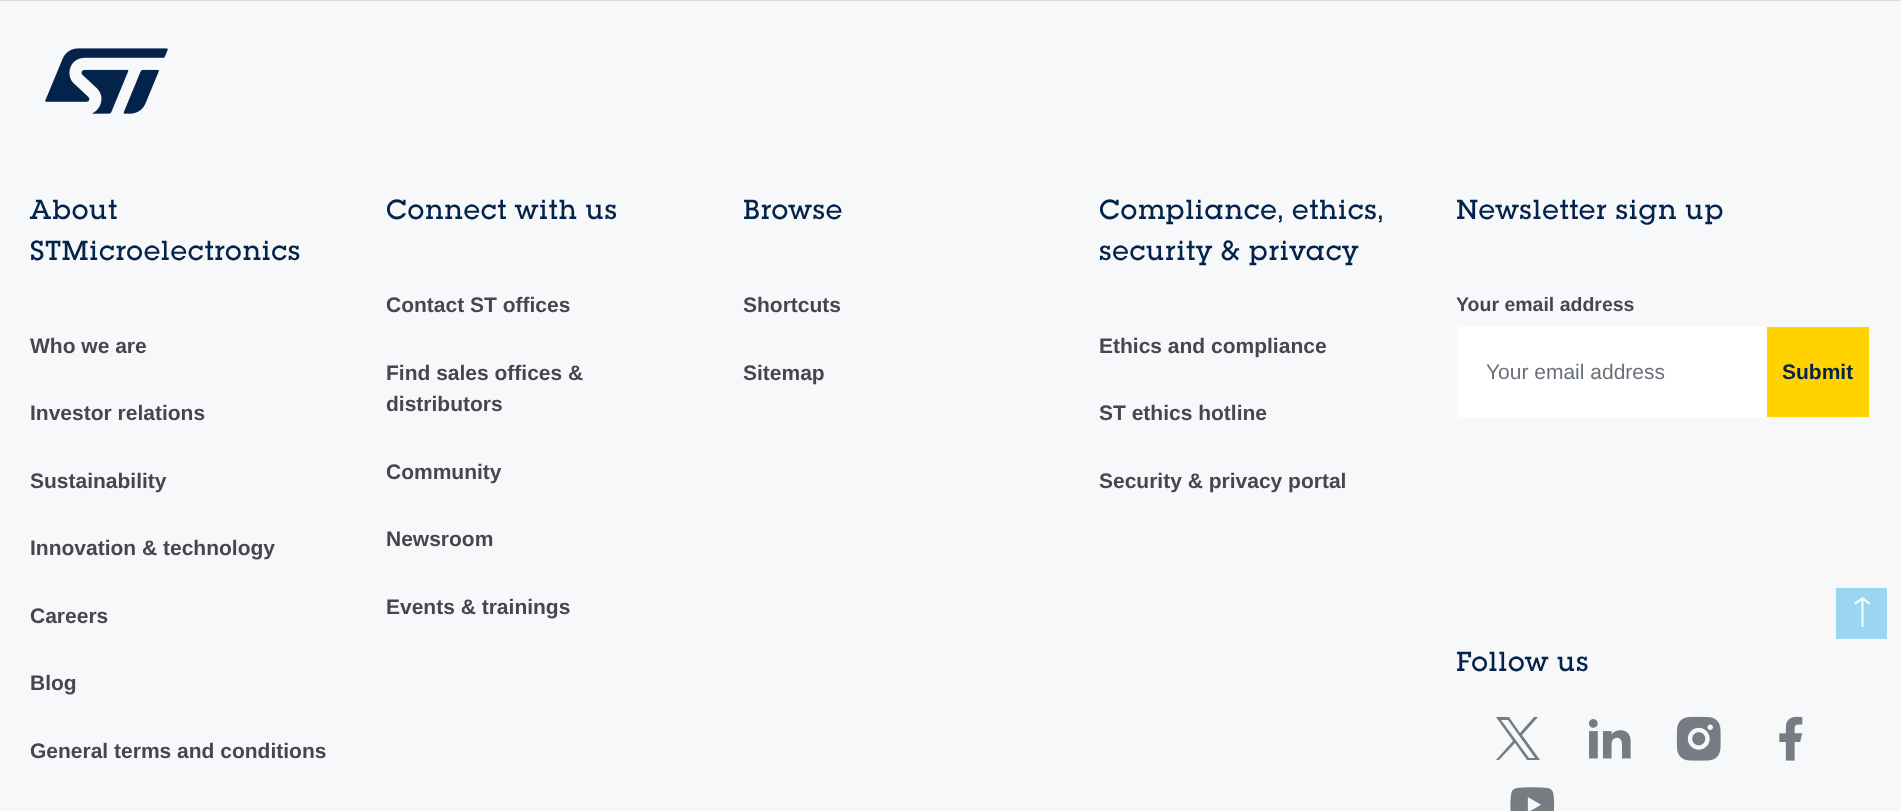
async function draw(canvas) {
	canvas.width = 1901;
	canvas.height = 811;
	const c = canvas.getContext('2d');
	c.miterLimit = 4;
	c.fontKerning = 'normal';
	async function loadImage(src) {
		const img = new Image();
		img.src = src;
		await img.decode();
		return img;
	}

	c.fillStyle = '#f7f8fa';
	c.fillRect(0, 0, 1901, 811);
	c.fillStyle = '#dadee2';
	c.fillRect(0, 0, 1901, 1);
	c.drawImage(await loadImage('img1.png'), 45, 48, 123, 66);
	c.letterSpacing = '0.75px';
	c.font = '500 27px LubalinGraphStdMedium';
	c.fillStyle = '#03234b';
	c.fillText('About', 30, 219);
	c.fillText('STMicroelectronics', 30, 260);
	c.letterSpacing = '0px';
	c.font = 'bold 21px Liberation Sans';
	c.fillStyle = '#464650';
	for (const [text, x, y] of [
		['Who we are', 30, 353],
		['Investor relations', 30, 420],
		['Sustainability', 30, 488],
		['Innovation & technology', 30, 555],
		['Careers', 30, 623],
		['Blog', 30, 690],
		['General terms and conditions', 30, 758],
	]) {
		c.fillText(text, x, y);
	}
	c.letterSpacing = '0.75px';
	c.font = '500 27px LubalinGraphStdMedium';
	c.fillStyle = '#03234b';
	c.fillText('Connect with us', 386, 219);
	c.letterSpacing = '0px';
	c.font = 'bold 21px Liberation Sans';
	c.fillStyle = '#464650';
	for (const [text, x, y] of [
		['Contact ST offices', 386, 312],
		['Find sales offices &', 386, 380],
		['distributors', 386, 411],
		['Community', 386, 479],
		['Newsroom', 386, 546],
		['Events & trainings', 386, 614],
	]) {
		c.fillText(text, x, y);
	}
	c.letterSpacing = '0.75px';
	c.font = '500 27px LubalinGraphStdMedium';
	c.fillStyle = '#03234b';
	c.fillText('Browse', 743, 219);
	c.letterSpacing = '0px';
	c.font = 'bold 21px Liberation Sans';
	c.fillStyle = '#464650';
	c.fillText('Shortcuts', 743, 312);
	c.fillText('Sitemap', 743, 380);
	c.letterSpacing = '0.75px';
	c.font = '500 27px LubalinGraphStdMedium';
	c.fillStyle = '#03234b';
	c.fillText('Compliance, ethics,', 1099, 219);
	c.fillText('security & privacy', 1099, 260);
	c.letterSpacing = '0px';
	c.font = 'bold 21px Liberation Sans';
	c.fillStyle = '#464650';
	for (const [text, x, y] of [
		['Ethics and compliance', 1099, 353],
		['ST ethics hotline', 1099, 420],
		['Security & privacy portal', 1099, 488],
	]) {
		c.fillText(text, x, y);
	}
	c.letterSpacing = '0.75px';
	c.font = '500 27px LubalinGraphStdMedium';
	c.fillStyle = '#03234b';
	c.fillText('Newsletter sign up', 1456, 219);
	c.letterSpacing = '0px';
	c.font = 'bold 19.5px Liberation Sans';
	c.fillStyle = '#464650';
	c.fillText('Your email address', 1456, 311);
	c.fillStyle = '#fff';
	c.fillRect(1457, 327, 310, 90);
	c.font = '21px Liberation Sans';
	c.fillStyle = '#6a7077';
	c.fillText('Your email address', 1486, 379);
	c.fillStyle = '#ffd200';
	c.fillRect(1767, 327, 102, 90);
	c.font = 'bold 21px Liberation Sans';
	c.fillStyle = '#03234b';
	c.fillText('Submit', 1782, 379);
	c.letterSpacing = '0.75px';
	c.font = '500 27px LubalinGraphStdMedium';
	c.fillText('Follow us', 1456, 671);
	c.fillStyle = '#767c84';
	c.beginPath();
	c.moveTo(1496, 717);
	c.lineTo(1513, 741);
	c.lineTo(1496, 760);
	c.lineTo(1499, 760);
	c.lineTo(1515, 743);
	c.lineTo(1527, 760);
	c.lineTo(1540, 760);
	c.lineTo(1522, 735);
	c.lineTo(1538, 717);
	c.lineTo(1534, 717);
	c.lineTo(1520, 733);
	c.lineTo(1509, 717);
	c.closePath();
	c.moveTo(1501, 720);
	c.lineTo(1508, 720);
	c.lineTo(1535, 758);
	c.lineTo(1529, 758);
	c.closePath();
	c.fill();
	c.drawImage(await loadImage('img2.png'), 1588, 719, 43, 40);
	c.drawImage(await loadImage('img3.png'), 1676, 716, 45, 45);
	c.drawImage(await loadImage('img4.png'), 1779, 716, 24, 45);
	c.drawImage(await loadImage('img5.png'), 1510, 787, 45, 24);
	c.fillStyle = '#9ad6f0';
	c.fillRect(1836, 588, 51, 51);
	c.fillStyle = '#fbfcfd';
	c.beginPath();
	c.moveTo(1870.5, 603);
	c.lineTo(1862.5, 597);
	c.lineTo(1854, 603);
	c.lineTo(1855.5, 604.5);
	c.lineTo(1861.5, 600.5);
	c.lineTo(1861.5, 627);
	c.lineTo(1863.5, 627);
	c.lineTo(1863.5, 600.5);
	c.lineTo(1869, 604.5);
	c.closePath();
	c.fill();
}

draw(document.querySelector('canvas'));
